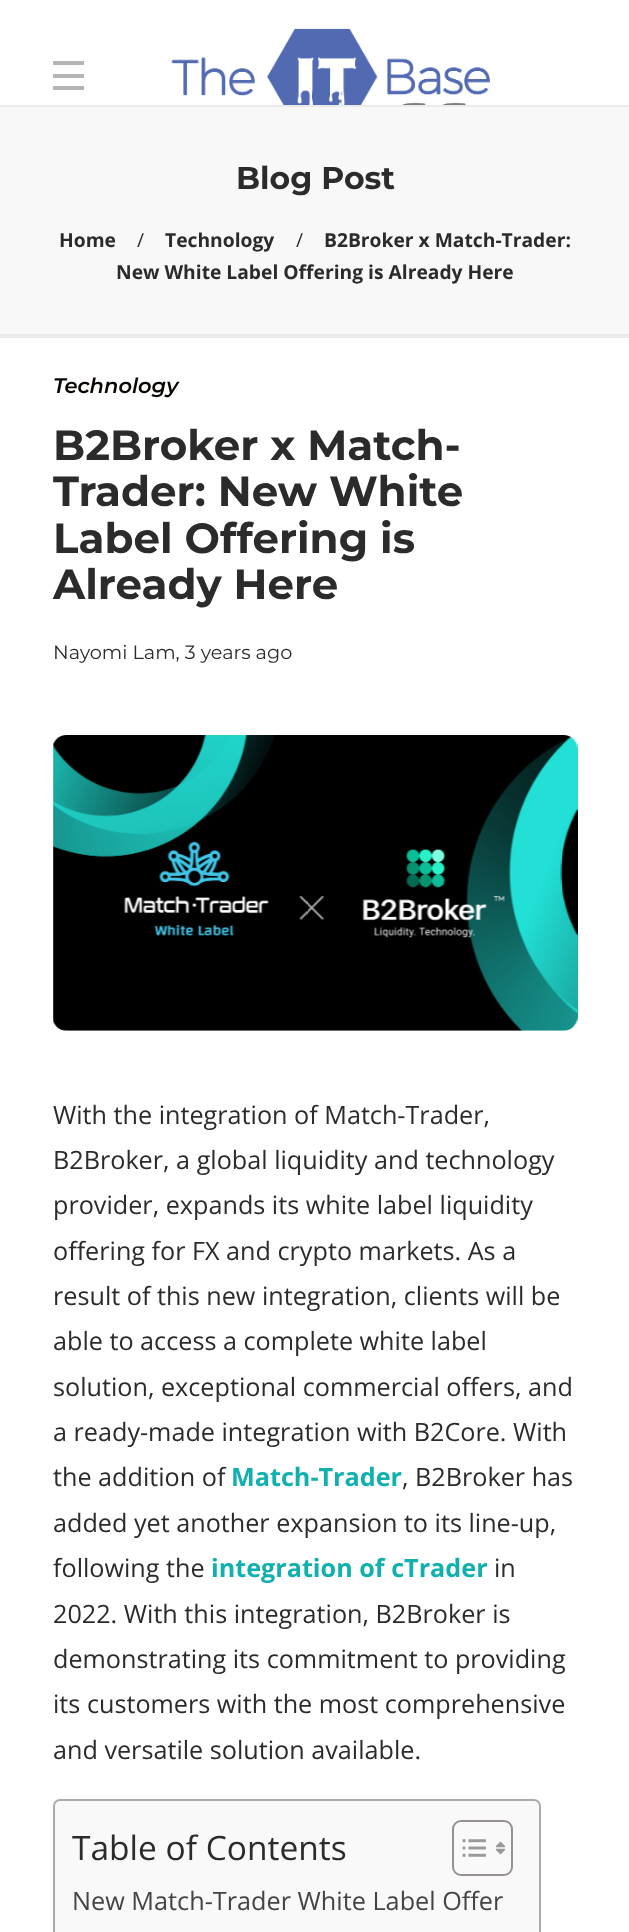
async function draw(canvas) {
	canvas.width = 629;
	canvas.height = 1932;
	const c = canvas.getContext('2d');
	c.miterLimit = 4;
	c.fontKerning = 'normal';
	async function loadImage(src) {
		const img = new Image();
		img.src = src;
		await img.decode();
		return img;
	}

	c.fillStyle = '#fff';
	c.fillRect(0, 0, 629, 1932);
	for (const [x, y, w, h, color] of [
		[53, 61, 31, 4, '#b5b5b5'],
		[53, 74, 31, 4, '#b5b5b5'],
		[53, 86, 31, 4, '#b5b5b5'],
	]) {
		c.fillStyle = color;
		c.fillRect(x, y, w, h);
	}
	c.drawImage(await loadImage('img1.png'), 171, 28, 319, 77);
	for (const [x, y, w, h, color] of [
		[0, 107, 629, 227, '#f8f8f8'],
		[0, 105, 629, 2, '#ebebeb'],
		[0, 334, 629, 4, '#ebebeb'],
	]) {
		c.fillStyle = color;
		c.fillRect(x, y, w, h);
	}
	c.font = 'bold 31.5px Montserrat';
	c.fillStyle = '#2b2b2b';
	c.fillText('Blog Post', 236, 189);
	c.font = 'bold 19.25px Open Sans';
	c.fillText('Home', 59, 247);
	c.font = '19.25px Open Sans';
	c.fillText('/', 137, 247);
	c.font = 'bold 19.25px Open Sans';
	c.fillText('Technology', 165, 247);
	c.font = '19.25px Open Sans';
	c.fillText('/', 296, 247);
	c.font = 'bold 19.25px Open Sans';
	c.fillText('B2Broker x Match-Trader:', 324, 247);
	c.fillText('New White Label Offering is Already Here', 116, 279);
	c.font = 'italic 600 21px Montserrat';
	c.fillStyle = '#0a0502';
	c.fillText('Technology', 53, 393);
	c.font = 'bold 42px Montserrat';
	c.fillStyle = '#2b2b2b';
	for (const [text, x, y] of [
		['B2Broker x Match-', 53, 460],
		['Trader: New White', 53, 506],
		['Label Offering is', 53, 553],
		['Already Here', 53, 599],
	]) {
		c.fillText(text, x, y);
	}
	c.font = '19.25px Montserrat';
	c.fillText('Nayomi Lam, 3 years ago', 53, 659);
	c.drawImage(await loadImage('img2.png'), 53, 735, 525, 296);
	c.font = '25.2px Open Sans';
	for (const [text, x, y] of [
		['With the integration of Match-Trader,', 53, 1124],
		['B2Broker, a global liquidity and technology', 53, 1169],
		['provider, expands its white label liquidity', 53, 1214],
		['offering for FX and crypto markets. As a', 53, 1260],
		['result of this new integration, clients will be', 53, 1305],
		['able to access a complete white label', 53, 1350],
		['solution, exceptional commercial offers, and', 53, 1396],
		['a ready-made integration with B2Core. With', 53, 1441],
		['the addition of', 53, 1486],
	]) {
		c.fillText(text, x, y);
	}
	c.font = 'bold 25.2px Open Sans';
	c.fillStyle = '#10b0af';
	c.fillText('Match-Trader', 231, 1486);
	c.font = '25.2px Open Sans';
	c.fillStyle = '#2b2b2b';
	for (const [text, x, y] of [
		[', B2Broker has', 402, 1486],
		['added yet another expansion to its line-up,', 53, 1532],
		['following the', 53, 1577],
	]) {
		c.fillText(text, x, y);
	}
	c.font = 'bold 25.2px Open Sans';
	c.fillStyle = '#10b0af';
	c.fillText('integration of cTrader', 211, 1577);
	c.font = '25.2px Open Sans';
	c.fillStyle = '#2b2b2b';
	for (const [text, x, y] of [
		['in', 494, 1577],
		['2022. With this integration, B2Broker is', 53, 1623],
		['demonstrating its commitment to providing', 53, 1668],
		['its customers with the most comprehensive', 53, 1713],
		['and versatile solution available.', 53, 1759],
	]) {
		c.fillText(text, x, y);
	}
	c.fillStyle = '#f9f9f9';
	c.beginPath();
	c.roundRect(54, 1800, 486, 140, 6);
	c.fill();
	c.strokeStyle = '#aaa';
	c.lineWidth = 2;
	c.stroke();
	c.font = '33.5px Open Sans';
	c.fillStyle = '#2b2b2b';
	c.fillText('Table of Contents', 72, 1860);
	c.beginPath();
	c.roundRect(453, 1821, 59, 54, 8);
	c.strokeStyle = '#999191';
	c.stroke();
	c.drawImage(await loadImage('img3.png'), 462, 1839, 24, 18);
	c.drawImage(await loadImage('img4.png'), 495, 1841, 11, 14);
	c.font = '25.25px Open Sans';
	c.fillStyle = '#444';
	c.fillText('New Match-Trader White Label Offer', 72, 1910);
}

draw(document.querySelector('canvas'));
